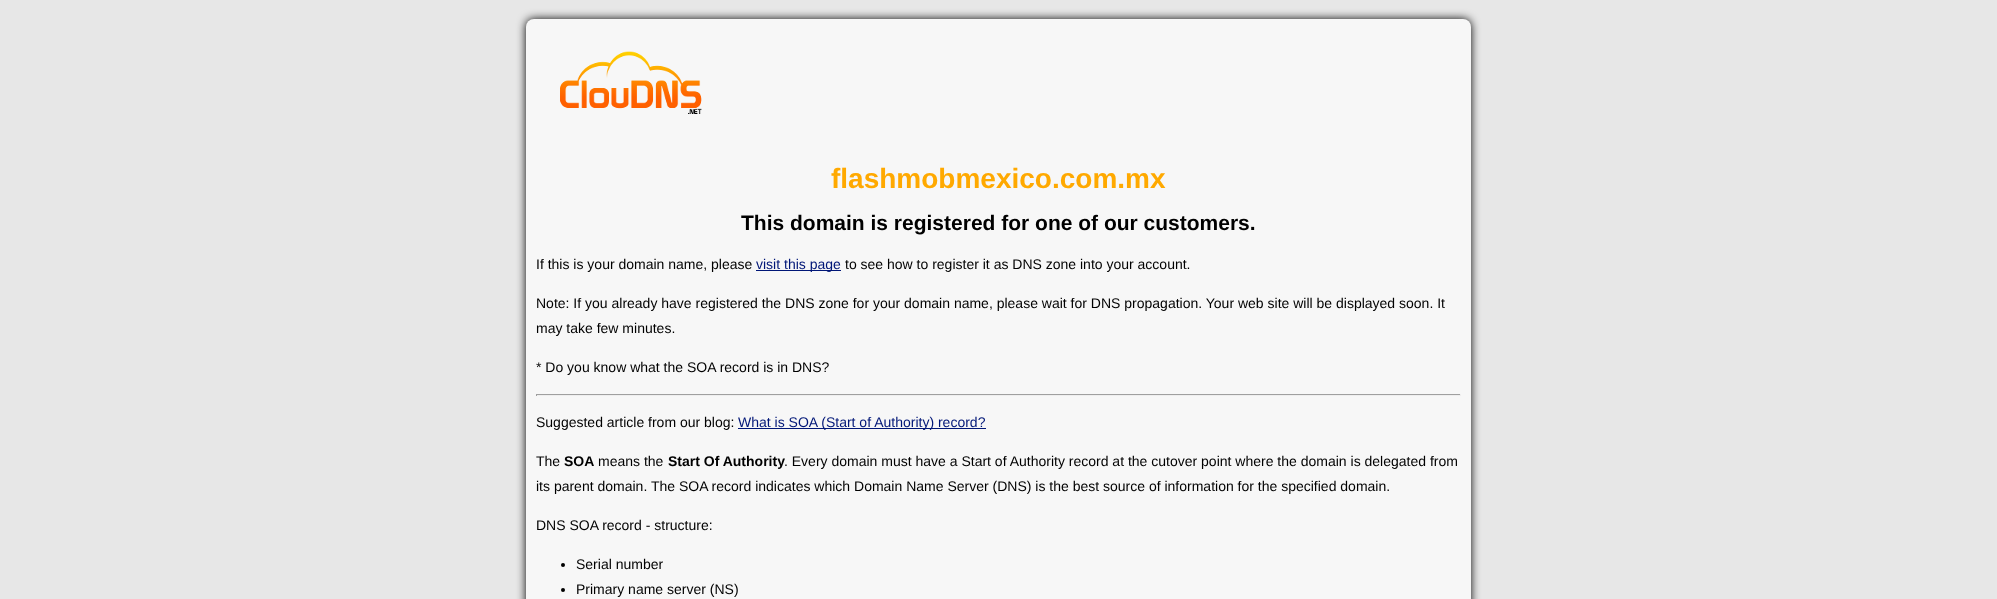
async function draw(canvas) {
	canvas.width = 1997;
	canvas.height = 599;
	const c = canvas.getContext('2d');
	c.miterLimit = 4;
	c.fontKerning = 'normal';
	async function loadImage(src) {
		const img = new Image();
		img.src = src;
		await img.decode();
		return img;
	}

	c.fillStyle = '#e7e7e7';
	c.fillRect(0, 0, 1997, 599);
	c.fillStyle = '#000';
	c.filter = 'blur(5px)';
	c.beginPath();
	c.roundRect(526, 19, 945, 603, 8);
	c.fill();
	c.filter = 'none';
	c.fillStyle = '#f7f7f7';
	c.beginPath();
	c.roundRect(526, 19, 945, 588, 8);
	c.fill();
	c.drawImage(await loadImage('img1.png'), 560, 51, 142, 63);
	c.font = 'bold 28px Liberation Sans';
	c.fillStyle = '#ffa900';
	c.fillText('flashmobmexico.com.mx', 831, 188);
	c.font = 'bold 21px Liberation Sans';
	c.fillStyle = '#000';
	c.fillText('This domain is registered for one of our customers.', 741, 230);
	c.font = '14px Liberation Sans';
	c.fillText('If this is your domain name, please', 536, 269);
	c.fillStyle = '#001677';
	c.fillRect(756, 270, 85, 1);
	c.fillText('visit this page', 756, 269);
	c.fillStyle = '#000';
	for (const [text, x, y] of [
		['to see how to register it as DNS zone into your account.', 845, 269],
		['Note: If you already have registered the DNS zone for your domain name, please wait for DNS propagation. Your web site will be displayed soon. It', 536, 308],
		['may take few minutes.', 536, 333],
		['* Do you know what the SOA record is in DNS?', 536, 372],
	]) {
		c.fillText(text, x, y);
	}
	for (const [x, y, w, h, color] of [
		[536, 394, 925, 1, '#9f9f9f'],
		[1460, 394, 1, 2, '#eee'],
		[536, 395, 925, 1, '#eee'],
		[536, 394, 1, 2, '#9f9f9f'],
	]) {
		c.fillStyle = color;
		c.fillRect(x, y, w, h);
	}
	c.fillStyle = '#000';
	c.fillText('Suggested article from our blog:', 536, 427);
	c.fillStyle = '#001677';
	c.fillRect(738, 428, 248, 1);
	c.fillText('What is SOA (Start of Authority) record?', 738, 427);
	c.fillStyle = '#000';
	c.fillText('The', 536, 466);
	c.font = 'bold 14px Liberation Sans';
	c.fillText('SOA', 564, 466);
	c.font = '14px Liberation Sans';
	c.fillText('means the', 598, 466);
	c.font = 'bold 14px Liberation Sans';
	c.fillText('Start Of Authority', 668, 466);
	c.font = '14px Liberation Sans';
	for (const [text, x, y] of [
		['. Every domain must have a Start of Authority record at the cutover point where the domain is delegated from', 784, 466],
		['its parent domain. The SOA record indicates which Domain Name Server (DNS) is the best source of information for the specified domain.', 536, 491],
		['DNS SOA record - structure:', 536, 530],
	]) {
		c.fillText(text, x, y);
	}
	c.beginPath();
	c.arc(563, 565, 2, 0, 2 * Math.PI);
	c.fill();
	c.fillText('Serial number', 576, 569);
	c.beginPath();
	c.arc(563, 590, 2, 0, 2 * Math.PI);
	c.fill();
	c.fillText('Primary name server (NS)', 576, 594);
}

draw(document.querySelector('canvas'));
